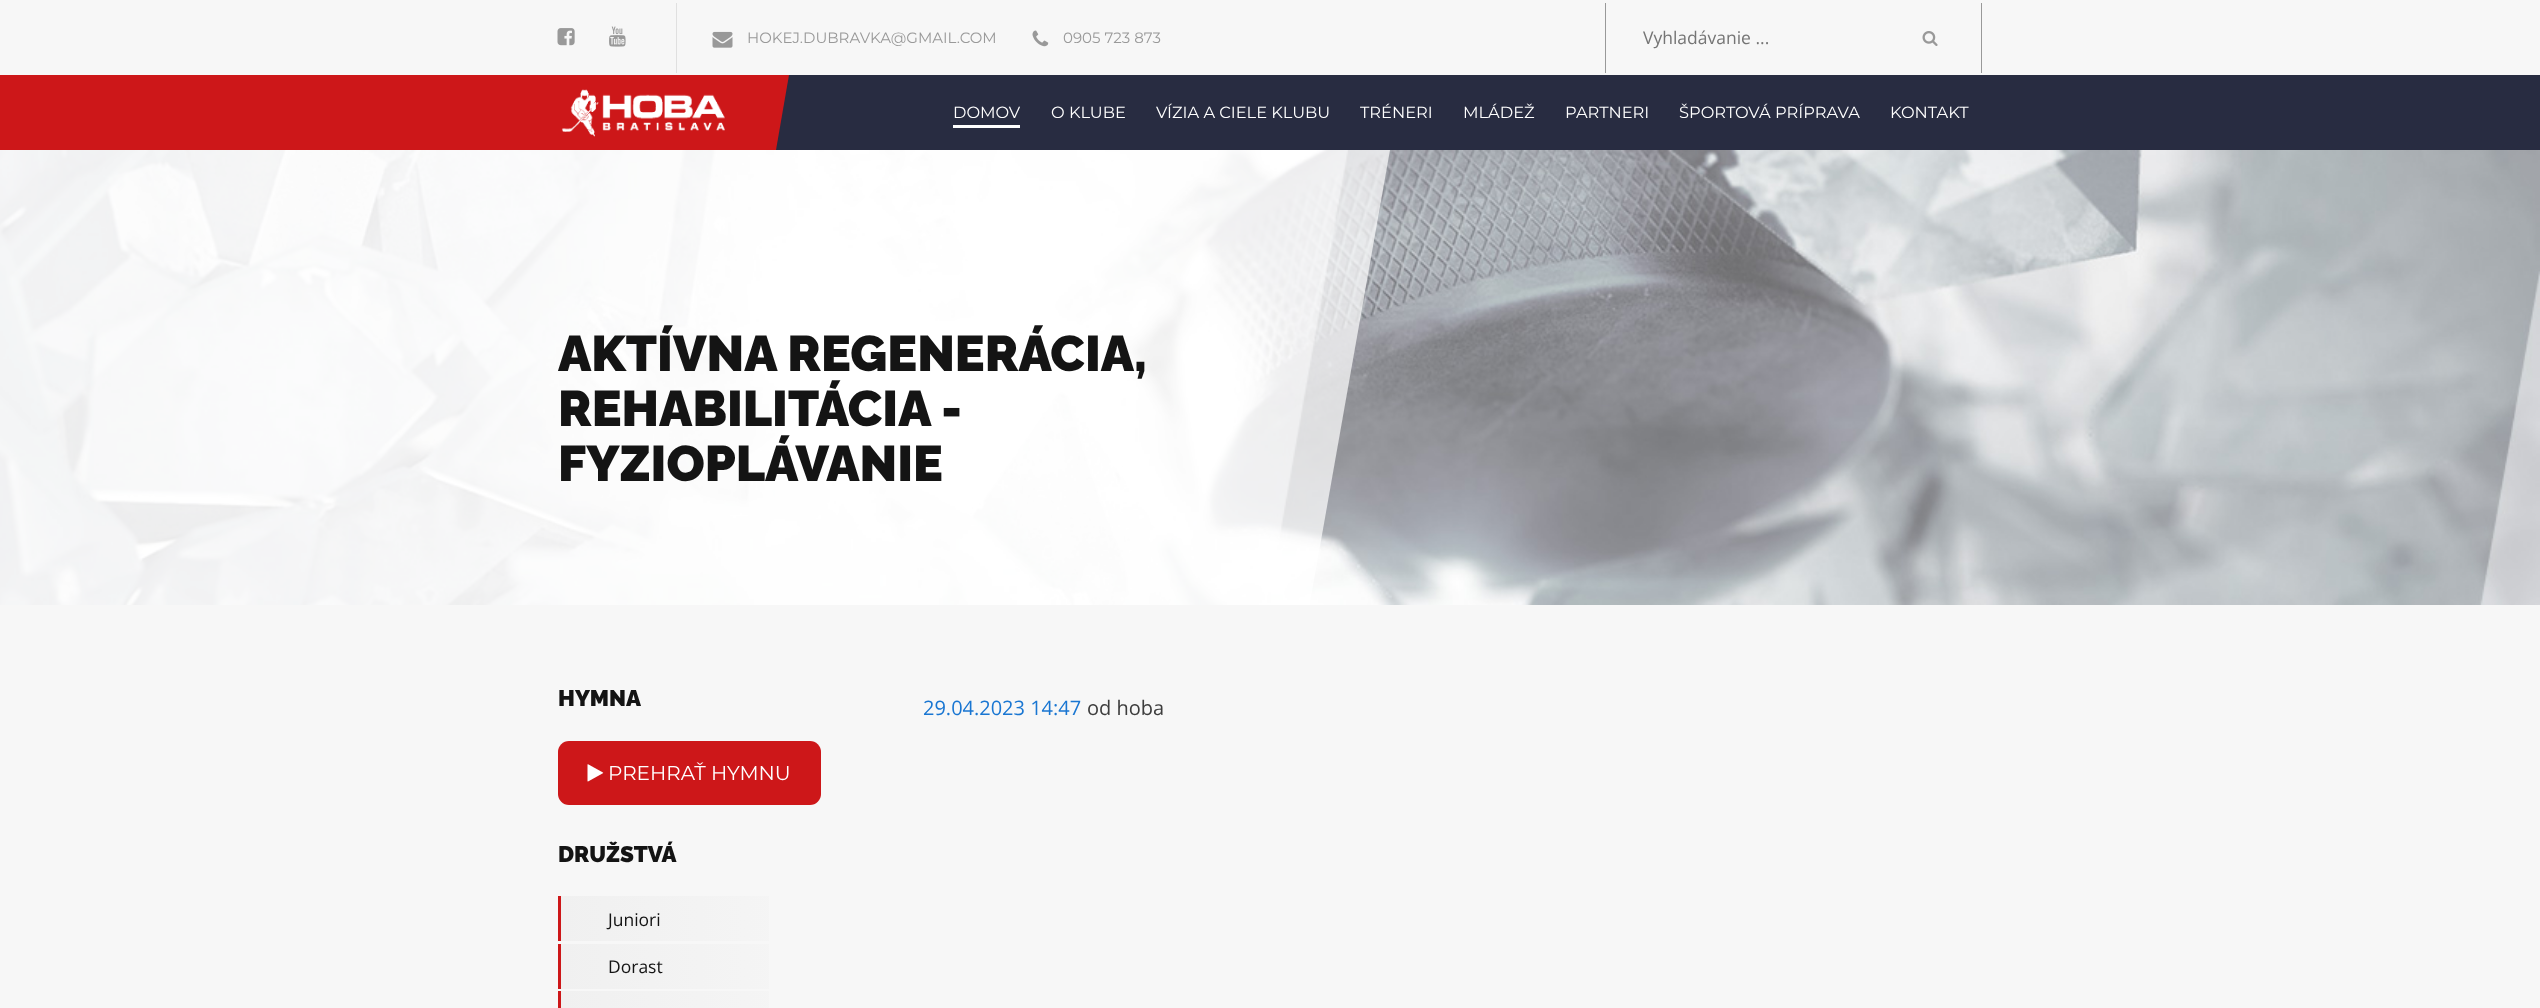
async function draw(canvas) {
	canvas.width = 2540;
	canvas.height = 1008;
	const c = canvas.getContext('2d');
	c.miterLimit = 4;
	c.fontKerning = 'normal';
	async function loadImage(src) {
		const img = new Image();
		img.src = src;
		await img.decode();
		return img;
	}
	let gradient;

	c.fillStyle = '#f7f7f7';
	c.fillRect(0, 0, 2540, 1008);
	c.fillStyle = '#e0e0e0';
	c.fillRect(676, 3, 1, 70);
	c.drawImage(await loadImage('img1.png'), 557, 28, 18, 18);
	c.drawImage(await loadImage('img2.png'), 609, 26, 17, 21);
	c.drawImage(await loadImage('img3.png'), 712, 31, 21, 17);
	c.font = '15px Montserrat';
	c.fillStyle = '#999';
	c.fillText('HOKEJ.DUBRAVKA@GMAIL.COM', 747, 43);
	c.drawImage(await loadImage('img4.png'), 1032, 30, 17, 17);
	c.fillText('0905 723 873', 1063, 43);
	c.fillRect(1981, 3, 1, 70);
	c.fillRect(1605, 3, 1, 70);
	c.font = '17.5px Open Sans';
	c.fillStyle = '#757575';
	c.fillText('Vyhladávanie ...', 1643, 44);
	c.drawImage(await loadImage('img5.png'), 1922, 31, 16, 15);
	c.fillStyle = '#282c41';
	c.fillRect(776, 75, 1764, 75);
	c.fillStyle = '#cd1719';
	c.beginPath();
	c.moveTo(-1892, 75);
	c.lineTo(789, 75);
	c.lineTo(776, 150);
	c.lineTo(-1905, 150);
	c.closePath();
	c.fill();
	c.drawImage(await loadImage('img6.png'), 561, 89, 164, 48);
	c.font = '16.25px Montserrat';
	c.fillStyle = '#fff';
	c.fillText('DOMOV', 953, 118);
	c.fillRect(953, 125, 67, 3);
	for (const [text, x, y] of [
		['O KLUBE', 1051, 118],
		['VÍZIA A CIELE KLUBU', 1156, 118],
		['TRÉNERI', 1360, 118],
		['MLÁDEŽ', 1463, 118],
		['PARTNERI', 1565, 118],
		['ŠPORTOVÁ PRÍPRAVA', 1679, 118],
		['KONTAKT', 1890, 118],
	]) {
		c.fillText(text, x, y);
	}
	c.drawImage(await loadImage('img7.png'), 0, 150, 2540, 455);
	c.save();
	c.beginPath();
	c.rect(0, 150, 2540, 455);
	c.clip();
	c.fillStyle = '#ffffffb3';
	c.beginPath();
	c.moveTo(-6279, 150);
	c.lineTo(1390, 150);
	c.lineTo(1187, 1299);
	c.lineTo(-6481, 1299);
	c.closePath();
	c.fill();
	c.restore();
	c.font = '900 50px Raleway';
	c.fillStyle = '#141414';
	for (const [text, x, y] of [
		['AKTÍVNA REGENERÁCIA,', 558, 371],
		['REHABILITÁCIA -', 558, 426],
		['FYZIOPLÁVANIE', 558, 481],
	]) {
		c.fillText(text, x, y);
	}
	c.font = '900 22.5px Raleway';
	c.fillText('HYMNA', 558, 706);
	c.fillStyle = '#cd1719';
	c.beginPath();
	c.roundRect(558, 741, 263, 64, 11);
	c.fill();
	c.drawImage(await loadImage('img8.png'), 587, 764, 17, 18);
	c.font = '20px Montserrat';
	c.fillStyle = '#fff';
	c.fillText('PREHRAŤ HYMNU', 608, 780);
	c.font = '900 22.5px Raleway';
	c.fillStyle = '#141414';
	c.fillText('DRUŽSTVÁ', 558, 862);
	gradient = c.createLinearGradient(558, 919, 886, 919);
	gradient.addColorStop(0, '#f0f0f0');
	gradient.addColorStop(1, '#f7f7f7');
	c.fillStyle = gradient;
	c.fillRect(561, 896, 208, 45);
	c.fillStyle = '#cd1719';
	c.fillRect(558, 896, 3, 45);
	c.font = '17.5px Open Sans';
	c.fillStyle = '#141414';
	c.fillText('Juniori', 608, 926);
	gradient = c.createLinearGradient(558, 966, 886, 966);
	gradient.addColorStop(0, '#f0f0f0');
	gradient.addColorStop(1, '#f7f7f7');
	c.fillStyle = gradient;
	c.fillRect(561, 944, 208, 45);
	c.fillStyle = '#cd1719';
	c.fillRect(558, 944, 3, 45);
	c.fillStyle = '#141414';
	c.fillText('Dorast', 608, 973);
	gradient = c.createLinearGradient(558, 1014, 886, 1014);
	gradient.addColorStop(0, '#f0f0f0');
	gradient.addColorStop(1, '#f7f7f7');
	c.fillStyle = gradient;
	c.fillRect(561, 991, 208, 17);
	c.fillStyle = '#cd1719';
	c.fillRect(558, 991, 3, 17);
	c.font = '20px Open Sans';
	c.fillStyle = '#1976d2';
	c.fillText('29.04.2023 14:47', 923, 715);
	c.fillStyle = '#3d3d3d';
	c.fillText('od hoba', 1087, 715);
}

draw(document.querySelector('canvas'));
